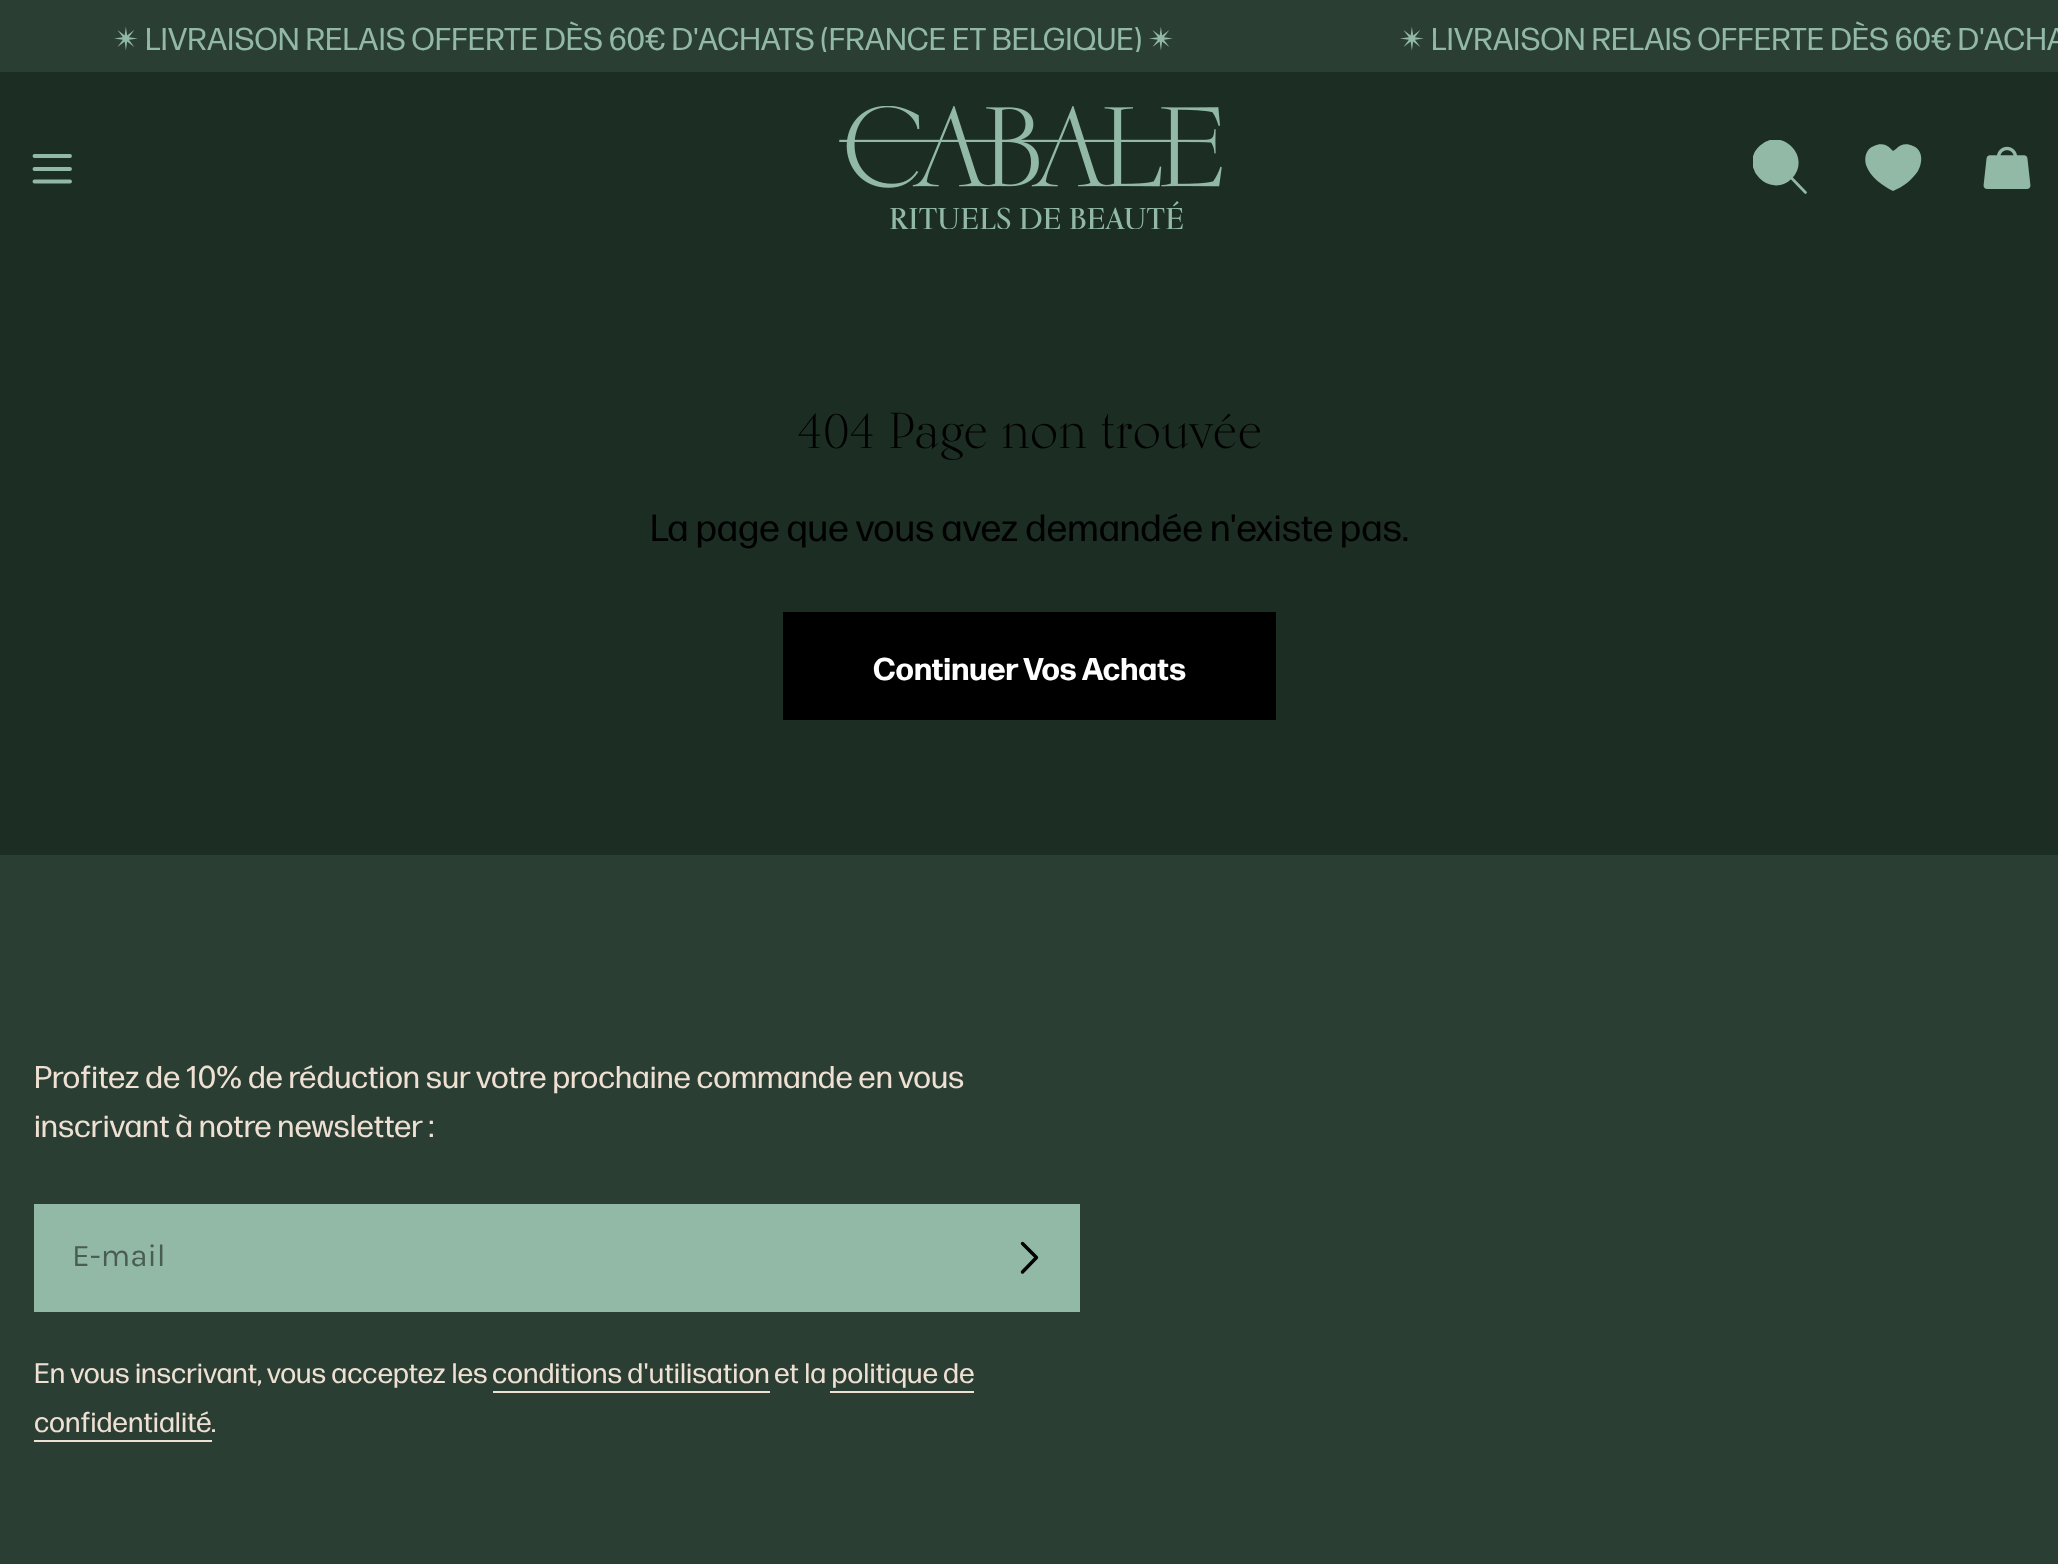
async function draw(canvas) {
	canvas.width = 2058;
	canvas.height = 1564;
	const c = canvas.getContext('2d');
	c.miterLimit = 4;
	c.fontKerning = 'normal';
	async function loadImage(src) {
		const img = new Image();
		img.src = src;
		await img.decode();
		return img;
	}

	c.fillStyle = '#1c2d24';
	c.fillRect(0, 0, 2058, 1564);
	c.fillStyle = '#2b3e33';
	c.fillRect(0, 0, 2058, 72);
	c.font = '31.5px DejaVu Sans';
	c.fillStyle = '#92b9a6';
	c.fillText('✴︎', 113, 50);
	c.save();
	c.beginPath();
	c.rect(0, 20, 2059, 32);
	c.clip();
	c.font = '31.5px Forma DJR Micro';
	c.fillText('LIVRAISON RELAIS OFFERTE DÈS 60€ D\'ACHATS (FRANCE ET BELGIQUE)', 145, 50);
	c.restore();
	c.fillText('✴︎', 1148, 50);
	c.fillText('✴︎', 1399, 50);
	c.font = '31.5px Forma DJR Micro';
	c.fillText('LIVRAISON RELAIS OFFERTE DÈS 60€ D\'ACHA', 1431, 50);
	c.beginPath();
	c.moveTo(34.5, 169);
	c.lineTo(70, 169);
	c.moveTo(34.5, 156);
	c.lineTo(70, 156);
	c.moveTo(34.5, 181.5);
	c.lineTo(70, 181.5);
	c.strokeStyle = '#92b9a6';
	c.lineWidth = 3.9;
	c.lineCap = 'round';
	c.lineJoin = 'round';
	c.stroke();
	c.drawImage(await loadImage('img1.png'), 839, 106, 383, 123);
	c.beginPath();
	c.moveTo(1806, 192);
	c.lineTo(1791, 178);
	c.moveTo(1791, 178);
	c.bezierCurveTo(1810, 158, 1782, 128, 1761, 146);
	c.bezierCurveTo(1740, 166, 1770, 198, 1791, 178);
	c.closePath();
	c.fill();
	c.save();
	c.beginPath();
	c.rect(1753, 140, 54, 56);
	c.clip();
	c.beginPath();
	c.moveTo(1805.5, 192.5);
	c.lineTo(1791, 177.5);
	c.moveTo(1791, 177.5);
	c.bezierCurveTo(1810, 158, 1781.5, 128, 1761, 146.5);
	c.bezierCurveTo(1739.5, 165.5, 1770, 198, 1791, 177.5);
	c.closePath();
	c.lineWidth = 2.7;
	c.stroke();
	c.restore();
	c.beginPath();
	c.moveTo(1893, 191);
	c.bezierCurveTo(1883, 186, 1870, 177, 1866, 165);
	c.bezierCurveTo(1864, 157, 1866, 149, 1874, 146);
	c.bezierCurveTo(1880, 143, 1887, 144, 1891, 149);
	c.lineTo(1893, 151);
	c.lineTo(1896, 149);
	c.bezierCurveTo(1900, 144, 1907, 143, 1913, 146);
	c.bezierCurveTo(1923, 150, 1923, 162, 1918, 171);
	c.bezierCurveTo(1912, 180, 1903, 187, 1893, 191);
	c.closePath();
	c.fill();
	c.drawImage(await loadImage('img2.png'), 1983, 146, 48, 43);
	c.font = '50.5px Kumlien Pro';
	c.fillStyle = '#000';
	c.fillText('404 Page non trouvée', 798, 448);
	c.font = '37.8px Forma DJR Micro';
	c.fillText('La page que vous avez demandée n\'existe pas.', 650, 541);
	c.fillRect(783, 612, 493, 108);
	c.font = 'bold 31.5px Forma DJR Micro';
	c.fillStyle = '#fff';
	c.fillText('Continuer Vos Achats', 873, 680);
	c.fillStyle = '#2b3e33';
	c.fillRect(0, 855, 2058, 709);
	c.font = '31.5px Forma DJR Micro';
	c.fillStyle = '#eee0d3';
	c.fillText('Profitez de 10% de réduction sur votre prochaine commande en vous', 34, 1088);
	c.fillText('inscrivant à notre newsletter :', 34, 1137);
	c.fillStyle = '#92b9a6';
	c.fillRect(34, 1204, 1046, 108);
	c.font = '31.5px Karla';
	c.fillStyle = '#495d53';
	c.fillText('E-mail', 72, 1266);
	c.beginPath();
	c.moveTo(1022.5, 1243.5);
	c.lineTo(1036.5, 1257.5);
	c.lineTo(1022.5, 1272);
	c.strokeStyle = '#000';
	c.lineWidth = 3.4;
	c.stroke();
	c.font = '28.4px Forma DJR Micro';
	c.fillStyle = '#eee0d3';
	c.fillText('En vous inscrivant, vous acceptez les', 34, 1383);
	c.fillText('conditions d\'utilisation', 492, 1383);
	c.fillRect(493, 1391, 277, 2);
	c.fillText('et la politique de', 774, 1383);
	c.fillText('confidentialité', 34, 1432);
	c.fillRect(830, 1391, 144, 2);
	c.fillRect(34, 1440, 178, 2);
	c.fillText('.', 211, 1432);
}

draw(document.querySelector('canvas'));
